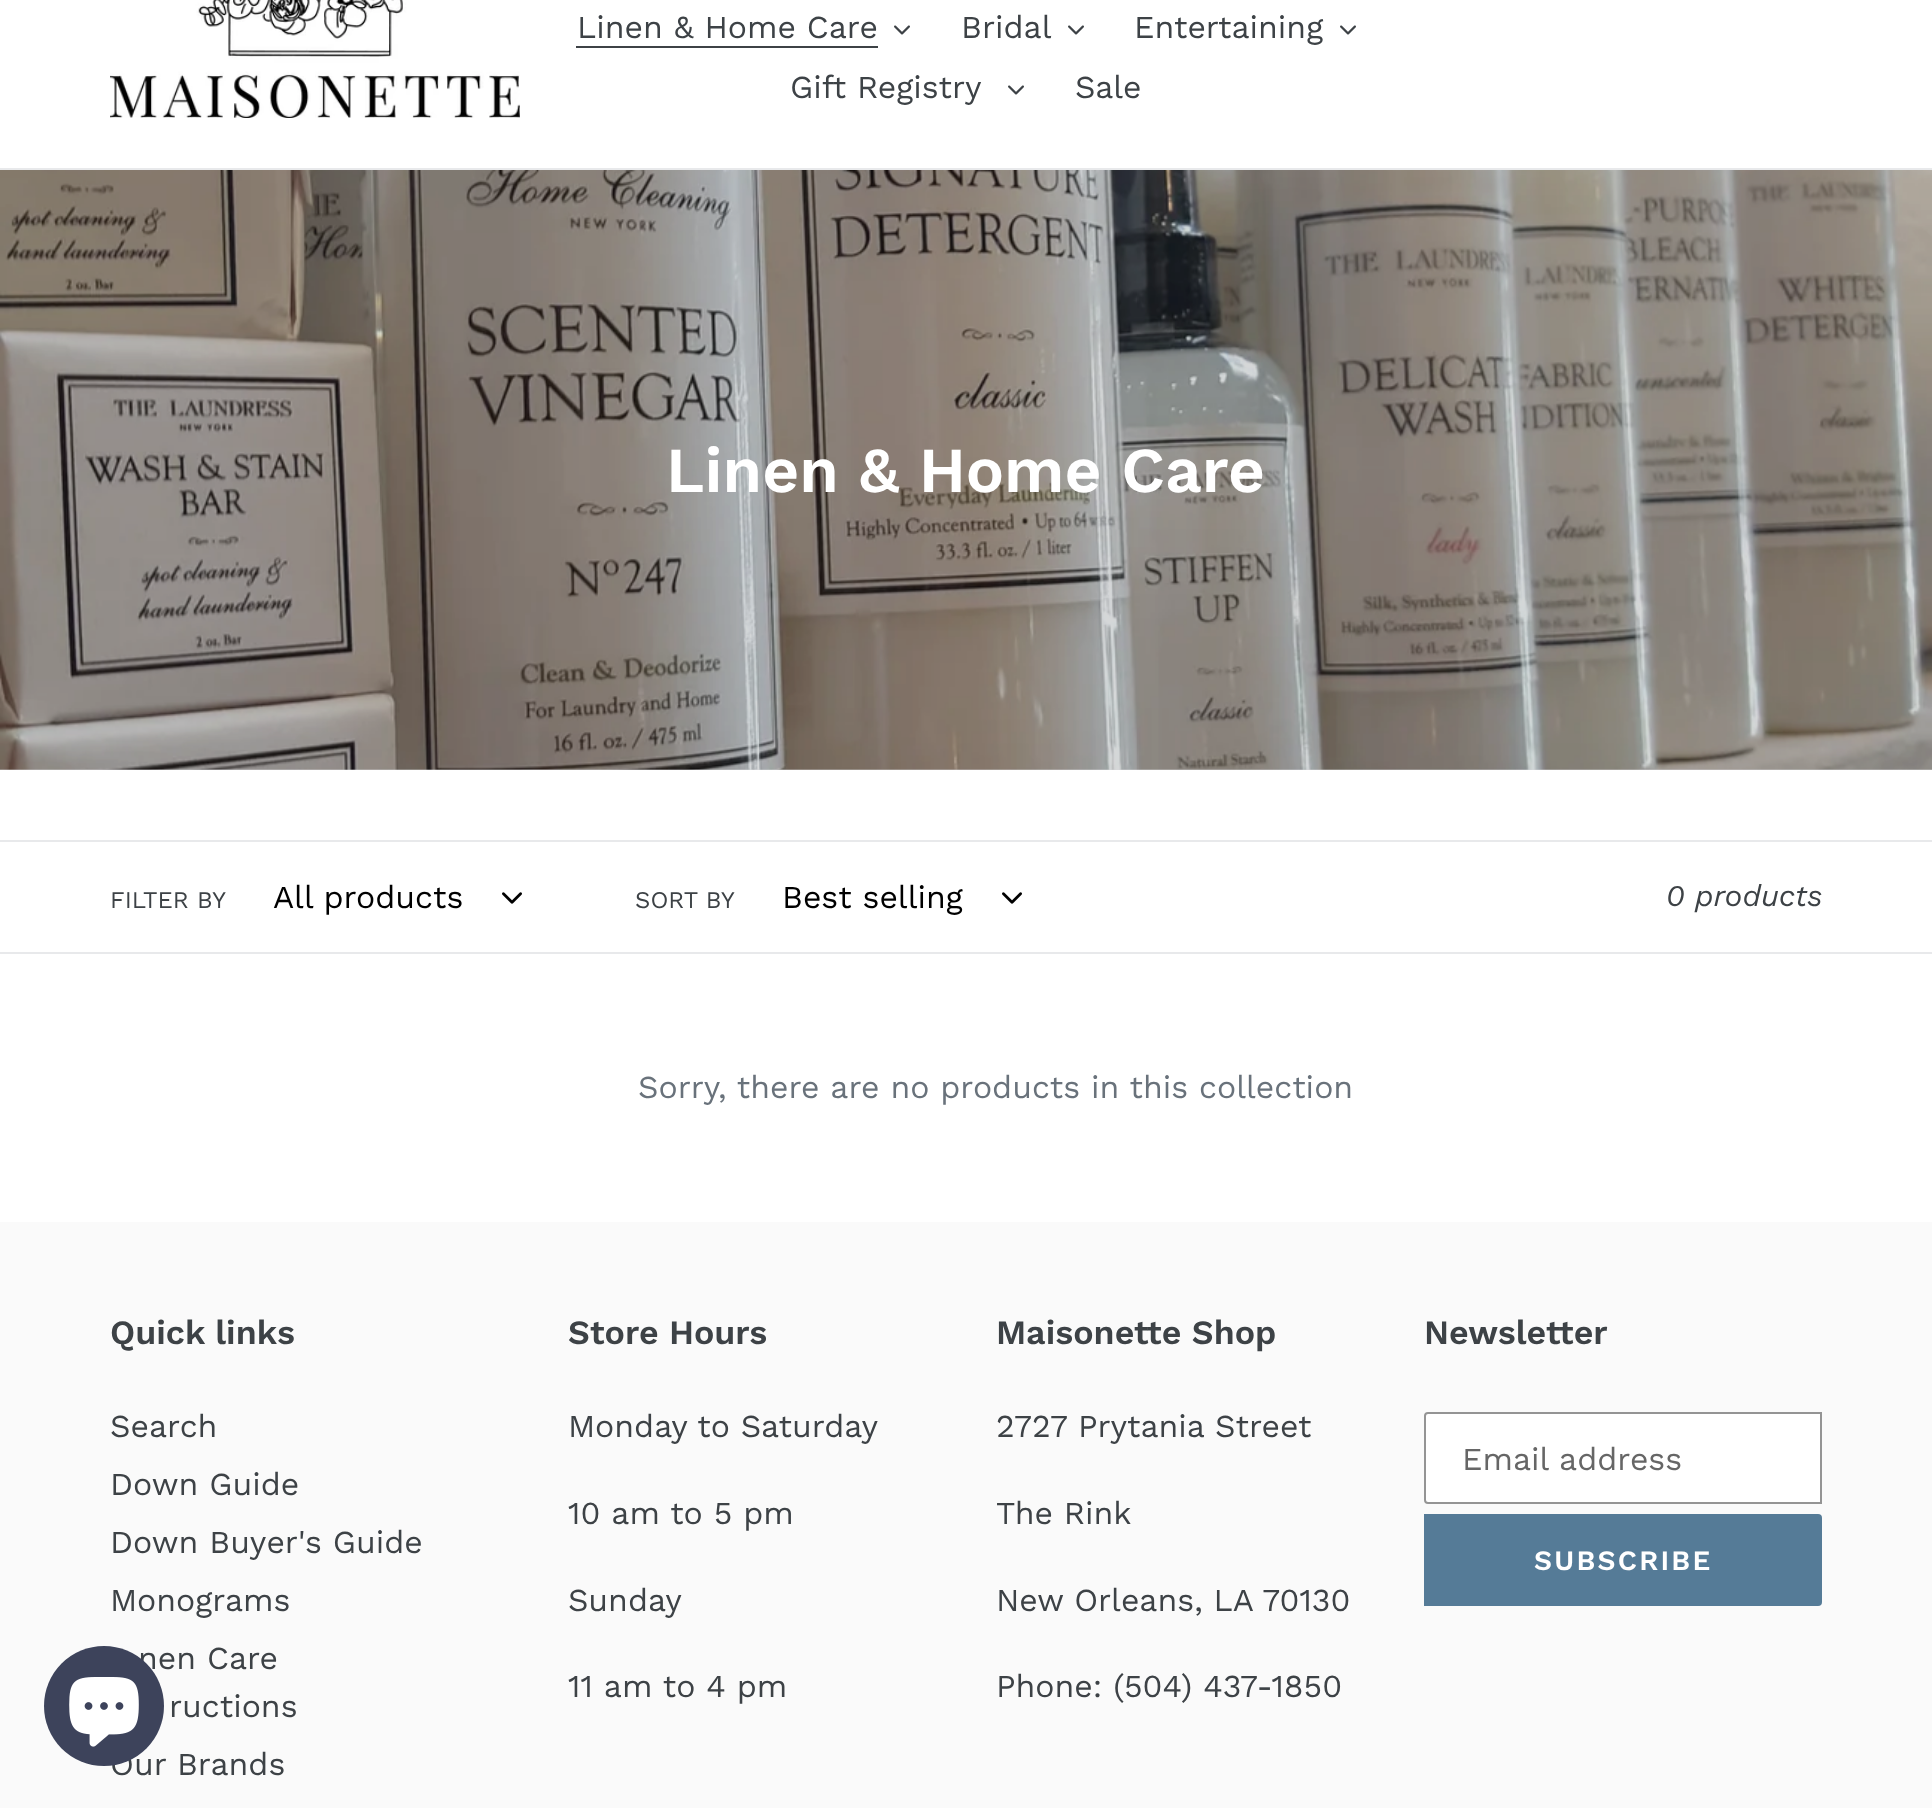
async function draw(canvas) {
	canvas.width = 1932;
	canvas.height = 1808;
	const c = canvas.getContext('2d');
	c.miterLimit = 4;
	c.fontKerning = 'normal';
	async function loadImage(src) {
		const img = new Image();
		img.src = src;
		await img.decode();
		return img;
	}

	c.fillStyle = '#fff';
	c.fillRect(0, 0, 1932, 1808);
	c.fillStyle = '#d6d7d8';
	c.fillRect(0, 769, 1932, 1);
	c.fillStyle = '#e8e9eb';
	c.fillRect(0, 168, 1932, 2);
	c.drawImage(await loadImage('img1.png'), 110, 0, 410, 118);
	c.font = '32px Work Sans';
	c.fillStyle = '#3d4246';
	c.fillText('Linen & Home Care', 577, 38);
	c.fillRect(576, 46, 302, 2);
	c.drawImage(await loadImage('img2.png'), 894, 25, 16, 10);
	c.fillText('Bridal', 961, 38);
	c.drawImage(await loadImage('img2.png'), 1068, 25, 16, 10);
	c.fillText('Entertaining', 1134, 38);
	c.drawImage(await loadImage('img2.png'), 1340, 25, 16, 10);
	c.fillText('Gift Registry', 790, 98);
	c.drawImage(await loadImage('img2.png'), 1008, 85, 16, 10);
	c.fillText('Sale', 1075, 98);
	c.fillStyle = '#fafafa';
	c.fillRect(0, 1222, 1932, 586);
	c.fillStyle = '#3d4246';
	c.fillText('nen Care', 138, 1669);
	c.fillText('Our Brands', 110, 1775);
	c.fillStyle = '#3d435b';
	c.beginPath();
	c.arc(104, 1706, 60, 0, 2 * Math.PI);
	c.fill();
	c.drawImage(await loadImage('img3.png'), 69, 1677, 70, 70);
	c.drawImage(await loadImage('img4.png'), 0, 170, 1932, 600);
	c.font = '600 64px Work Sans';
	c.fillStyle = '#fff';
	c.fillText('Linen & Home Care', 666, 492);
	c.fillStyle = '#e8e9eb';
	c.fillRect(0, 840, 1932, 2);
	c.fillRect(0, 952, 1932, 2);
	c.font = '24px Work Sans';
	c.fillStyle = '#3d4246';
	c.fillText('FILTER BY', 110, 908);
	c.font = '32px Work Sans';
	c.fillStyle = '#000';
	c.fillText('All products', 273, 908);
	c.drawImage(await loadImage('img5.png'), 502, 892, 20, 12);
	c.font = '24px Work Sans';
	c.fillStyle = '#3d4246';
	c.fillText('SORT BY', 635, 908);
	c.font = '32px Work Sans';
	c.fillStyle = '#000';
	c.fillText('Best selling', 782, 908);
	c.drawImage(await loadImage('img5.png'), 1002, 892, 20, 12);
	c.font = 'italic 30px Work Sans';
	c.fillStyle = '#3d4246';
	c.fillText('0 products', 1666, 906);
	c.font = '32px Work Sans';
	c.fillStyle = '#69727b';
	c.fillText('Sorry, there are no products in this collection', 638, 1098);
	c.font = '600 34px Work Sans';
	c.fillStyle = '#3d4246';
	c.fillText('Quick links', 110, 1344);
	c.font = '32px Work Sans';
	for (const [text, x, y] of [
		['Search', 110, 1437],
		['Down Guide', 110, 1495],
		['Down Buyer\'s Guide', 110, 1553],
		['Monograms', 110, 1611],
		['ructions', 169, 1717],
	]) {
		c.fillText(text, x, y);
	}
	c.font = '600 34px Work Sans';
	c.fillText('Store Hours', 568, 1344);
	c.font = '32px Work Sans';
	for (const [text, x, y] of [
		['Monday to Saturday', 568, 1437],
		['10 am to 5 pm', 568, 1524],
		['Sunday', 568, 1611],
		['11 am to 4 pm', 568, 1697],
	]) {
		c.fillText(text, x, y);
	}
	c.font = '600 34px Work Sans';
	c.fillText('Maisonette Shop', 996, 1344);
	c.font = '32px Work Sans';
	for (const [text, x, y] of [
		['2727 Prytania Street', 996, 1437],
		['The Rink', 996, 1524],
		['New Orleans, LA 70130', 996, 1611],
		['Phone: (504) 437-1850', 996, 1697],
	]) {
		c.fillText(text, x, y);
	}
	c.font = '600 34px Work Sans';
	c.fillText('Newsletter', 1424, 1344);
	c.fillStyle = '#fff';
	c.beginPath();
	c.roundRect(1425, 1413, 396, 90, [3, 0, 0, 3]);
	c.fill();
	c.strokeStyle = '#949494';
	c.lineWidth = 2;
	c.stroke();
	c.font = '32px Work Sans';
	c.fillStyle = '#666';
	c.fillText('Email address', 1462, 1470);
	c.fillStyle = '#557b97';
	c.beginPath();
	c.roundRect(1424, 1514, 398, 92, [0, 4, 4, 0]);
	c.fill();
	c.letterSpacing = '2.25px';
	c.font = '600 28px Work Sans';
	c.fillStyle = '#fff';
	c.fillText('SUBSCRIBE', 1534, 1570);
}

draw(document.querySelector('canvas'));
